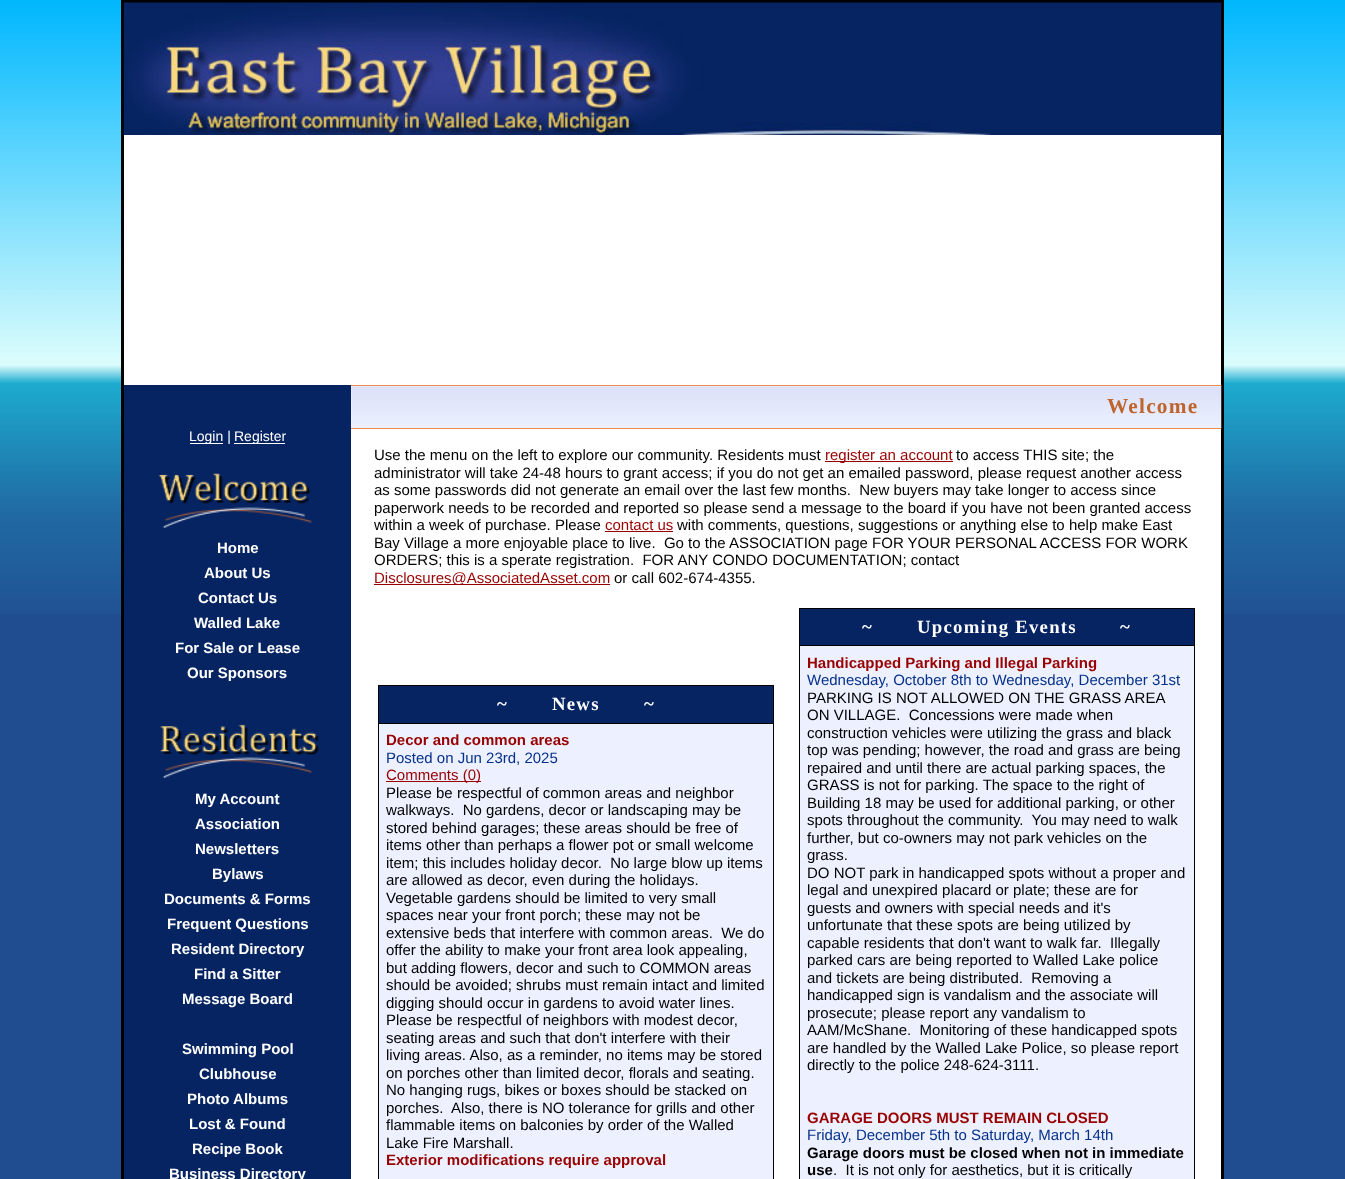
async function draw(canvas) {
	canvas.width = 1345;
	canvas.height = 1179;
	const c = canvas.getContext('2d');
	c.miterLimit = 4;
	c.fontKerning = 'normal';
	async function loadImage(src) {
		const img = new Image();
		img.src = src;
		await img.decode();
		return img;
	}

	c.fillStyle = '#204d90';
	c.fillRect(0, 0, 1345, 1179);
	c.drawImage(await loadImage('img1.png'), 0, 0, 1345, 614);
	c.fillStyle = '#fff';
	c.fillRect(124, 135, 1097, 1044);
	c.strokeStyle = '#000';
	c.lineWidth = 3;
	c.strokeRect(122.5, 1.5, 1100, 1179);
	c.drawImage(await loadImage('img2.png'), 123, 2, 1099, 133);
	c.fillStyle = '#062462';
	c.fillRect(124, 385, 227, 794);
	c.drawImage(await loadImage('img3.png'), 351, 385, 871, 44);
	c.fillStyle = '#ee8b50';
	c.fillRect(351, 385, 870, 1);
	c.fillRect(351, 428, 870, 1);
	c.letterSpacing = '1.25px';
	c.font = 'bold 21.25px Liberation Serif';
	c.fillStyle = '#bf642d';
	c.fillText('Welcome', 1107, 413);
	c.fillStyle = '#fff';
	c.fillRect(190, 443, 33, 1);
	c.letterSpacing = '0px';
	c.font = '14px Liberation Sans';
	c.fillText('Login |', 189, 441);
	c.fillRect(234, 443, 51, 1);
	c.fillText('Register', 234, 441);
	c.drawImage(await loadImage('img4.png'), 158, 473, 154, 56);
	c.font = 'bold 15px Liberation Sans';
	for (const [text, x, y] of [
		['Home', 217, 553],
		['About Us', 204, 578],
		['Contact Us', 198, 603],
		['Walled Lake', 194, 628],
		['For Sale or Lease', 175, 653],
		['Our Sponsors', 187, 678],
	]) {
		c.fillText(text, x, y);
	}
	c.drawImage(await loadImage('img5.png'), 160, 724, 159, 55);
	for (const [text, x, y] of [
		['My Account', 195, 804],
		['Association', 195, 829],
		['Newsletters', 195, 854],
		['Bylaws', 212, 879],
		['Documents & Forms', 164, 904],
		['Frequent Questions', 167, 929],
		['Resident Directory', 171, 954],
		['Find a Sitter', 194, 979],
		['Message Board', 182, 1004],
		['Swimming Pool', 182, 1054],
		['Clubhouse', 199, 1079],
		['Photo Albums', 187, 1104],
		['Lost & Found', 189, 1129],
		['Recipe Book', 192, 1154],
		['Business Directory', 169, 1179],
	]) {
		c.fillText(text, x, y);
	}
	c.font = '15px Liberation Sans';
	c.fillStyle = '#000';
	c.fillText('Use the menu on the left to explore our community. Residents must', 374, 460);
	c.fillStyle = '#900';
	c.fillRect(825, 461, 128, 1);
	c.fillText('register an account', 825, 460);
	c.fillStyle = '#000';
	for (const [text, x, y] of [
		['to access THIS site; the', 956, 460],
		['administrator will take 24-48 hours to grant access; if you do not get an emailed password, please request another access', 374, 478],
		['as some passwords did not generate an email over the last few months.  New buyers may take longer to access since', 374, 495],
		['paperwork needs to be recorded and reported so please send a message to the board if you have not been granted access', 374, 513],
		['within a week of purchase. Please', 374, 530],
	]) {
		c.fillText(text, x, y);
	}
	c.fillStyle = '#900';
	c.fillText('contact us', 605, 530);
	c.fillRect(605, 531, 68, 1);
	c.fillStyle = '#000';
	for (const [text, x, y] of [
		['with comments, questions, suggestions or anything else to help make East', 677, 530],
		['Bay Village a more enjoyable place to live.  Go to the ASSOCIATION page FOR YOUR PERSONAL ACCESS FOR WORK', 374, 548],
		['ORDERS; this is a sperate registration.  FOR ANY CONDO DOCUMENTATION; contact', 374, 565],
	]) {
		c.fillText(text, x, y);
	}
	c.fillStyle = '#900';
	c.fillRect(374, 584, 236, 1);
	c.fillText('Disclosures@AssociatedAsset.com', 374, 583);
	c.fillStyle = '#000';
	c.fillText('or call 602-674-4355.', 614, 583);
	c.fillRect(378, 685, 396, 494);
	c.fillStyle = '#062462';
	c.fillRect(379, 686, 394, 37);
	c.letterSpacing = '1.25px';
	c.font = 'bold 18.75px Liberation Serif';
	c.fillStyle = '#fff';
	for (const [text, x, y] of [
		['~', 497, 710],
		['News', 552, 710],
		['~', 644, 710],
	]) {
		c.fillText(text, x, y);
	}
	c.fillStyle = '#edf0ff';
	c.fillRect(379, 724, 394, 455);
	c.letterSpacing = '0px';
	c.font = 'bold 15px Liberation Sans';
	c.fillStyle = '#900';
	c.fillText('Decor and common areas', 386, 745);
	c.font = '15px Liberation Sans';
	c.fillStyle = '#05318a';
	c.fillText('Posted on Jun 23rd, 2025', 386, 763);
	c.fillStyle = '#900';
	c.fillRect(386, 781, 95, 1);
	c.fillText('Comments (0)', 386, 780);
	c.fillStyle = '#000';
	for (const [text, x, y] of [
		['Please be respectful of common areas and neighbor', 386, 798],
		['walkways.  No gardens, decor or landscaping may be', 386, 815],
		['stored behind garages; these areas should be free of', 386, 833],
		['items other than perhaps a flower pot or small welcome', 386, 850],
		['item; this includes holiday decor.  No large blow up items', 386, 868],
		['are allowed as decor, even during the holidays.', 386, 885],
		['Vegetable gardens should be limited to very small', 386, 903],
		['spaces near your front porch; these may not be', 386, 920],
		['extensive beds that interfere with common areas.  We do', 386, 938],
		['offer the ability to make your front area look appealing,', 386, 955],
		['but adding flowers, decor and such to COMMON areas', 386, 973],
		['should be avoided; shrubs must remain intact and limited', 386, 990],
		['digging should occur in gardens to avoid water lines.', 386, 1008],
		['Please be respectful of neighbors with modest decor,', 386, 1025],
		['seating areas and such that don\'t interfere with their', 386, 1043],
		['living areas. Also, as a reminder, no items may be stored', 386, 1060],
		['on porches other than limited decor, florals and seating.', 386, 1078],
		['No hanging rugs, bikes or boxes should be stacked on', 386, 1095],
		['porches.  Also, there is NO tolerance for grills and other', 386, 1113],
		['flammable items on balconies by order of the Walled', 386, 1130],
		['Lake Fire Marshall.', 386, 1148],
	]) {
		c.fillText(text, x, y);
	}
	c.font = 'bold 15px Liberation Sans';
	c.fillStyle = '#900';
	c.fillText('Exterior modifications require approval', 386, 1165);
	c.fillStyle = '#000';
	c.fillRect(799, 608, 396, 571);
	c.fillStyle = '#062462';
	c.fillRect(800, 609, 394, 36);
	c.letterSpacing = '1.25px';
	c.font = 'bold 18.75px Liberation Serif';
	c.fillStyle = '#fff';
	for (const [text, x, y] of [
		['~', 862, 633],
		['Upcoming Events', 917, 633],
		['~', 1120, 633],
	]) {
		c.fillText(text, x, y);
	}
	c.fillStyle = '#edf0ff';
	c.fillRect(800, 646, 394, 533);
	c.letterSpacing = '0px';
	c.font = 'bold 15px Liberation Sans';
	c.fillStyle = '#900';
	c.fillText('Handicapped Parking and Illegal Parking', 807, 668);
	c.font = '15px Liberation Sans';
	c.fillStyle = '#05318a';
	c.fillText('Wednesday, October 8th to Wednesday, December 31st', 807, 685);
	c.fillStyle = '#000';
	for (const [text, x, y] of [
		['PARKING IS NOT ALLOWED ON THE GRASS AREA', 807, 703],
		['ON VILLAGE.  Concessions were made when', 807, 720],
		['construction vehicles were utilizing the grass and black', 807, 738],
		['top was pending; however, the road and grass are being', 807, 755],
		['repaired and until there are actual parking spaces, the', 807, 773],
		['GRASS is not for parking. The space to the right of', 807, 790],
		['Building 18 may be used for additional parking, or other', 807, 808],
		['spots throughout the community.  You may need to walk', 807, 825],
		['further, but co-owners may not park vehicles on the', 807, 843],
		['grass.', 807, 860],
		['DO NOT park in handicapped spots without a proper and', 807, 878],
		['legal and unexpired placard or plate; these are for', 807, 895],
		['guests and owners with special needs and it\'s', 807, 913],
		['unfortunate that these spots are being utilized by', 807, 930],
		['capable residents that don\'t want to walk far.  Illegally', 807, 948],
		['parked cars are being reported to Walled Lake police', 807, 965],
		['and tickets are being distributed.  Removing a', 807, 983],
		['handicapped sign is vandalism and the associate will', 807, 1000],
		['prosecute; please report any vandalism to', 807, 1018],
		['AAM/McShane.  Monitoring of these handicapped spots', 807, 1035],
		['are handled by the Walled Lake Police, so please report', 807, 1053],
		['directly to the police 248-624-3111.', 807, 1070],
	]) {
		c.fillText(text, x, y);
	}
	c.font = 'bold 15px Liberation Sans';
	c.fillStyle = '#900';
	c.fillText('GARAGE DOORS MUST REMAIN CLOSED', 807, 1123);
	c.font = '15px Liberation Sans';
	c.fillStyle = '#05318a';
	c.fillText('Friday, December 5th to Saturday, March 14th', 807, 1140);
	c.font = 'bold 15px Liberation Sans';
	c.fillStyle = '#000';
	c.fillText('Garage doors must be closed when not in immediate', 807, 1158);
	c.fillText('use', 807, 1175);
	c.font = '15px Liberation Sans';
	c.fillText('.  It is not only for aesthetics, but it is critically', 833, 1175);
}

draw(document.querySelector('canvas'));
